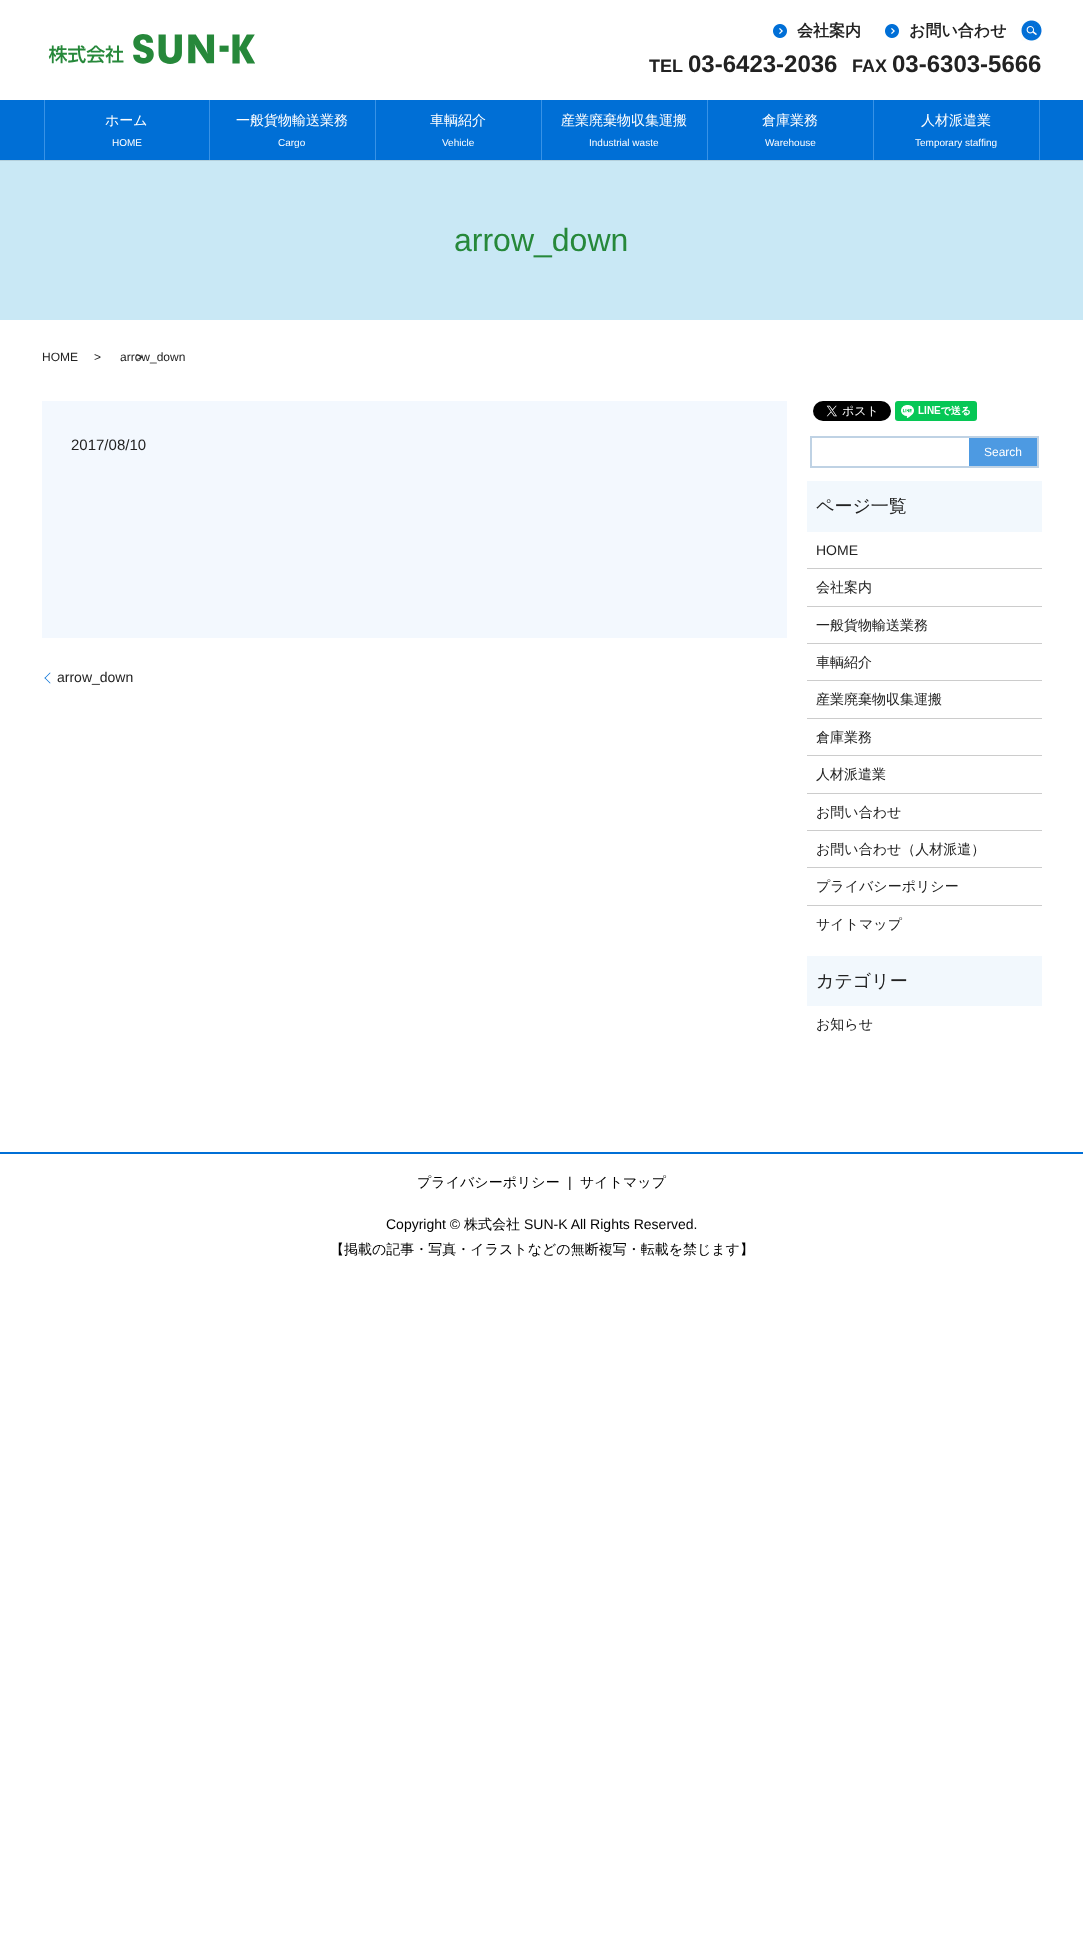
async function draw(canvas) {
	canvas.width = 1083;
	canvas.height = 1953;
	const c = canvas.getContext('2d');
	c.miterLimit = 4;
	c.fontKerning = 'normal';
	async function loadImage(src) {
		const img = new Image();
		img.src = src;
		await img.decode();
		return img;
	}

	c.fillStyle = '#fff';
	c.fillRect(0, 0, 1083, 1953);
	c.fillStyle = '#c9e8f5';
	c.fillRect(0, 160, 1083, 160);
	c.save();
	c.beginPath();
	c.rect(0, 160, 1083, 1);
	c.clip();
	c.fillStyle = '#0000001a';
	c.filter = 'blur(0.5px)';
	c.beginPath();
	c.rect(0, 1, 1083, 160);
	c.fill();
	c.filter = 'none';
	c.restore();
	c.drawImage(await loadImage('img1.png'), 48, 34, 207, 30);
	c.drawImage(await loadImage('img2.png'), 773, 24, 14, 14);
	c.font = 'bold 16px WenQuanYi Zen Hei';
	c.fillStyle = '#222';
	c.fillText('会社案内', 797, 36);
	c.drawImage(await loadImage('img2.png'), 885, 24, 14, 14);
	c.fillText('お問い合わせ', 909, 36);
	c.drawImage(await loadImage('img3.png'), 1021, 20, 21, 21);
	c.font = 'bold 18px Liberation Sans';
	c.fillText('TEL', 649, 72);
	c.font = 'bold 24px Liberation Sans';
	c.fillText('03-6423-2036', 688, 72);
	c.font = 'bold 18px Liberation Sans';
	c.fillText('FAX', 852, 72);
	c.font = 'bold 24px Liberation Sans';
	c.fillText('03-6303-5666', 892, 72);
	for (const [x, y, w, h, color] of [
		[0, 100, 1083, 60, '#006fd6'],
		[209, 100, 1, 60, '#3892e6'],
		[44, 100, 1, 60, '#3892e6'],
	]) {
		c.fillStyle = color;
		c.fillRect(x, y, w, h);
	}
	c.font = '500 14px WenQuanYi Zen Hei';
	c.fillStyle = '#fff';
	c.fillText('ホーム', 105, 125);
	c.font = '10px Liberation Sans';
	c.fillText('HOME', 112, 146);
	c.fillStyle = '#3892e6';
	c.fillRect(375, 100, 1, 60);
	c.font = '500 14px WenQuanYi Zen Hei';
	c.fillStyle = '#fff';
	c.fillText('一般貨物輸送業務', 236, 125);
	c.font = '10px Liberation Sans';
	c.fillText('Cargo', 278, 146);
	c.fillStyle = '#3892e6';
	c.fillRect(541, 100, 1, 60);
	c.font = '500 14px WenQuanYi Zen Hei';
	c.fillStyle = '#fff';
	c.fillText('車輌紹介', 430, 125);
	c.font = '10px Liberation Sans';
	c.fillText('Vehicle', 442, 146);
	c.fillStyle = '#3892e6';
	c.fillRect(707, 100, 1, 60);
	c.font = '500 14px WenQuanYi Zen Hei';
	c.fillStyle = '#fff';
	c.fillText('産業廃棄物収集運搬', 561, 125);
	c.font = '10px Liberation Sans';
	c.fillText('Industrial waste', 589, 146);
	c.fillStyle = '#3892e6';
	c.fillRect(873, 100, 1, 60);
	c.font = '500 14px WenQuanYi Zen Hei';
	c.fillStyle = '#fff';
	c.fillText('倉庫業務', 762, 125);
	c.font = '10px Liberation Sans';
	c.fillText('Warehouse', 765, 146);
	c.fillStyle = '#3892e6';
	c.fillRect(1039, 100, 1, 60);
	c.font = '500 14px WenQuanYi Zen Hei';
	c.fillStyle = '#fff';
	c.fillText('人材派遣業', 921, 125);
	c.font = '10px Liberation Sans';
	c.fillText('Temporary staffing', 915, 146);
	c.font = '32px Liberation Sans';
	c.fillStyle = '#26883a';
	c.fillText('arrow_down', 454, 251);
	c.font = '12px Liberation Sans';
	c.fillStyle = '#222';
	for (const [text, x, y] of [
		['HOME', 42, 361],
		['>', 94, 361],
		['>', 136, 361],
		['arrow_down', 120, 361],
	]) {
		c.fillText(text, x, y);
	}
	c.fillStyle = '#f3f8fe';
	c.fillRect(42, 401, 745, 237);
	c.font = '15px Liberation Sans';
	c.fillStyle = '#222';
	c.fillText('2017/08/10', 71, 450);
	c.fillStyle = '#006fd6';
	c.beginPath();
	c.moveTo(44.5, 678);
	c.lineTo(50, 672.5);
	c.lineTo(50.5, 673);
	c.lineTo(45, 678.5);
	c.closePath();
	c.fill();
	c.font = '14px Liberation Sans';
	c.fillStyle = '#222';
	c.fillText('arrow_down', 57, 682);
	c.fillStyle = '#006fd6';
	c.beginPath();
	c.moveTo(50, 683.5);
	c.lineTo(44.5, 678);
	c.lineTo(45, 677.5);
	c.lineTo(50.5, 683);
	c.closePath();
	c.fill();
	c.drawImage(await loadImage('img4.png'), 813, 401, 78, 20);
	c.drawImage(await loadImage('img5.png'), 895, 401, 82, 20);
	c.strokeStyle = '#bfd2e4';
	c.lineWidth = 2;
	c.strokeRect(811, 437, 227, 30);
	c.fillStyle = '#4d9ae2';
	c.fillRect(969, 438, 68, 28);
	c.font = '12px Liberation Sans';
	c.fillStyle = '#fff';
	c.fillText('Search', 984, 456);
	c.fillStyle = '#f2f8fd';
	c.fillRect(807, 481, 235, 51);
	c.font = '500 18px WenQuanYi Zen Hei';
	c.fillStyle = '#222';
	c.fillText('ページ一覧', 816, 512);
	c.fillStyle = '#ccc';
	c.fillRect(807, 568, 235, 1);
	c.font = '14px Liberation Sans';
	c.fillStyle = '#222';
	c.fillText('HOME', 816, 555);
	c.fillStyle = '#ccc';
	c.fillRect(807, 606, 235, 1);
	c.font = '500 14px WenQuanYi Zen Hei';
	c.fillStyle = '#222';
	c.fillText('会社案内', 816, 592);
	c.fillStyle = '#ccc';
	c.fillRect(807, 643, 235, 1);
	c.fillStyle = '#222';
	c.fillText('一般貨物輸送業務', 816, 630);
	c.fillStyle = '#ccc';
	c.fillRect(807, 680, 235, 1);
	c.fillStyle = '#222';
	c.fillText('車輌紹介', 816, 667);
	c.fillStyle = '#ccc';
	c.fillRect(807, 718, 235, 1);
	c.fillStyle = '#222';
	c.fillText('産業廃棄物収集運搬', 816, 704);
	c.fillStyle = '#ccc';
	c.fillRect(807, 755, 235, 1);
	c.fillStyle = '#222';
	c.fillText('倉庫業務', 816, 742);
	c.fillStyle = '#ccc';
	c.fillRect(807, 793, 235, 1);
	c.fillStyle = '#222';
	c.fillText('人材派遣業', 816, 779);
	c.fillStyle = '#ccc';
	c.fillRect(807, 830, 235, 1);
	c.fillStyle = '#222';
	c.fillText('お問い合わせ', 816, 817);
	c.fillStyle = '#ccc';
	c.fillRect(807, 867, 235, 1);
	c.fillStyle = '#222';
	c.fillText('お問い合わせ（人材派遣）', 816, 854);
	c.fillStyle = '#ccc';
	c.fillRect(807, 905, 235, 1);
	c.fillStyle = '#222';
	c.fillText('プライバシーポリシー', 816, 891);
	c.fillText('サイトマップ', 816, 929);
	c.fillStyle = '#f2f8fd';
	c.fillRect(807, 956, 235, 50);
	c.font = '500 18px WenQuanYi Zen Hei';
	c.fillStyle = '#222';
	c.fillText('カテゴリー', 816, 987);
	c.font = '500 14px WenQuanYi Zen Hei';
	c.fillText('お知らせ', 816, 1029);
	c.fillStyle = '#006fd6';
	c.fillRect(0, 1152, 1083, 2);
	c.fillStyle = '#000';
	c.fillText('プライバシーポリシー', 417, 1187);
	c.font = '14px Liberation Sans';
	c.fillText('|', 568, 1187);
	c.font = '500 14px WenQuanYi Zen Hei';
	c.fillText('サイトマップ', 580, 1187);
	c.font = '14px Liberation Sans';
	c.fillText('Copyright ©', 386, 1229);
	c.font = '500 14px WenQuanYi Zen Hei';
	c.fillText('株式会社', 464, 1229);
	c.font = '14px Liberation Sans';
	c.fillText('SUN-K All Rights Reserved.', 524, 1229);
	c.font = '500 14px WenQuanYi Zen Hei';
	c.fillText('【掲載の記事・写真・イラストなどの無断複写・転載を禁じます】', 330, 1254);
}

draw(document.querySelector('canvas'));
